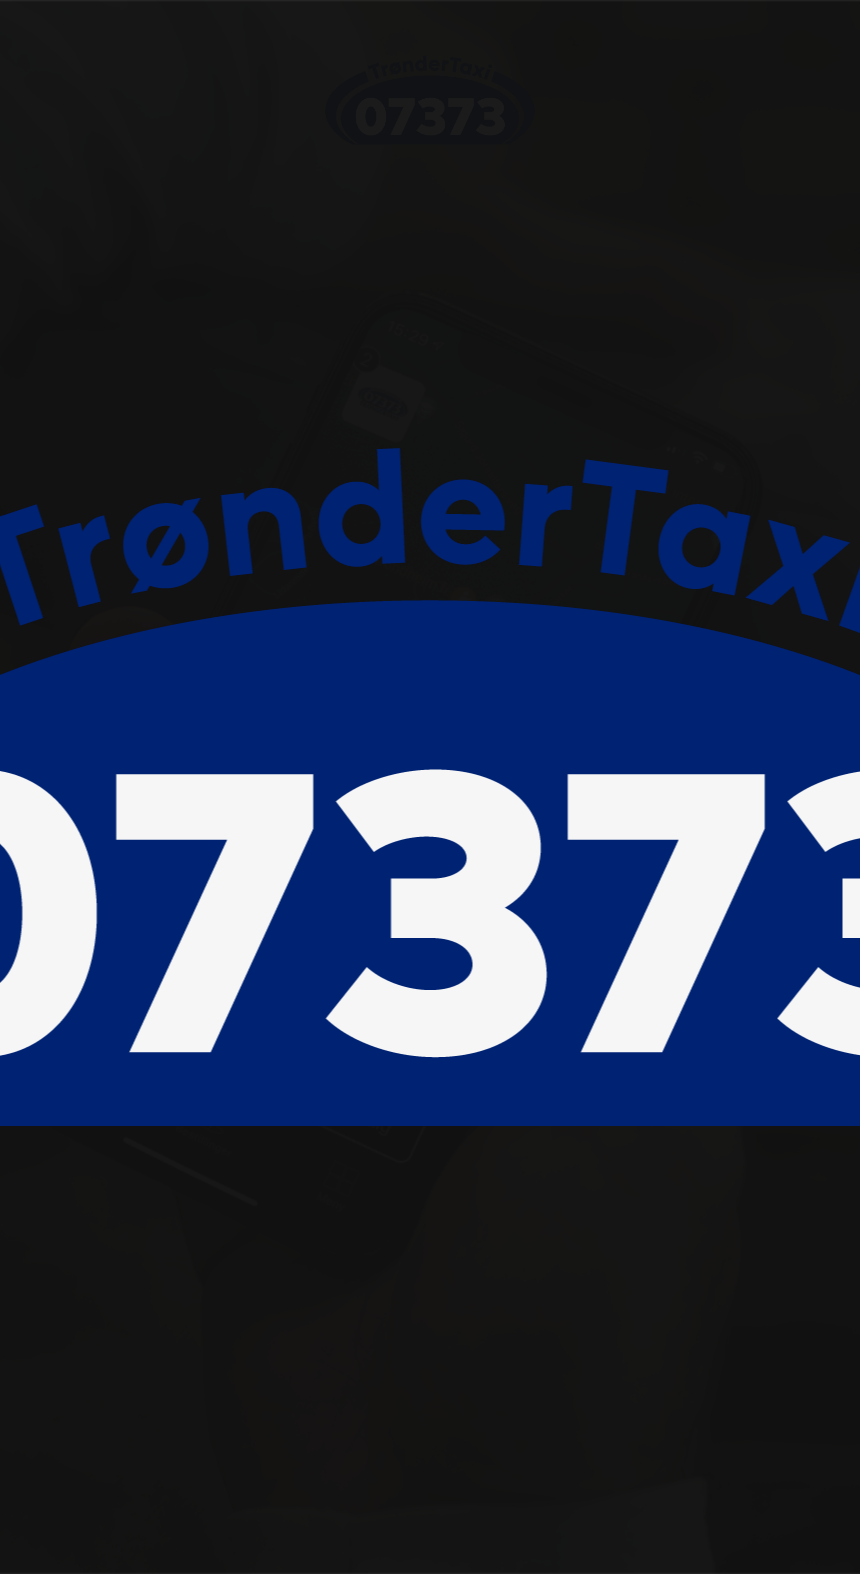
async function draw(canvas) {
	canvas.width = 860;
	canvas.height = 1574;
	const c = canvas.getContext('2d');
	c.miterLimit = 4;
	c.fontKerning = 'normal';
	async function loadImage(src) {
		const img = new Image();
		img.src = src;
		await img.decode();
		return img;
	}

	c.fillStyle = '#fff';
	c.fillRect(0, 0, 860, 1574);
	c.drawImage(await loadImage('img1.png'), 0, 0, 860, 1574);
	c.drawImage(await loadImage('img2.png'), 325, 55, 210, 90);
	c.drawImage(await loadImage('img3.png'), 0, 448, 860, 678);
}

draw(document.querySelector('canvas'));
